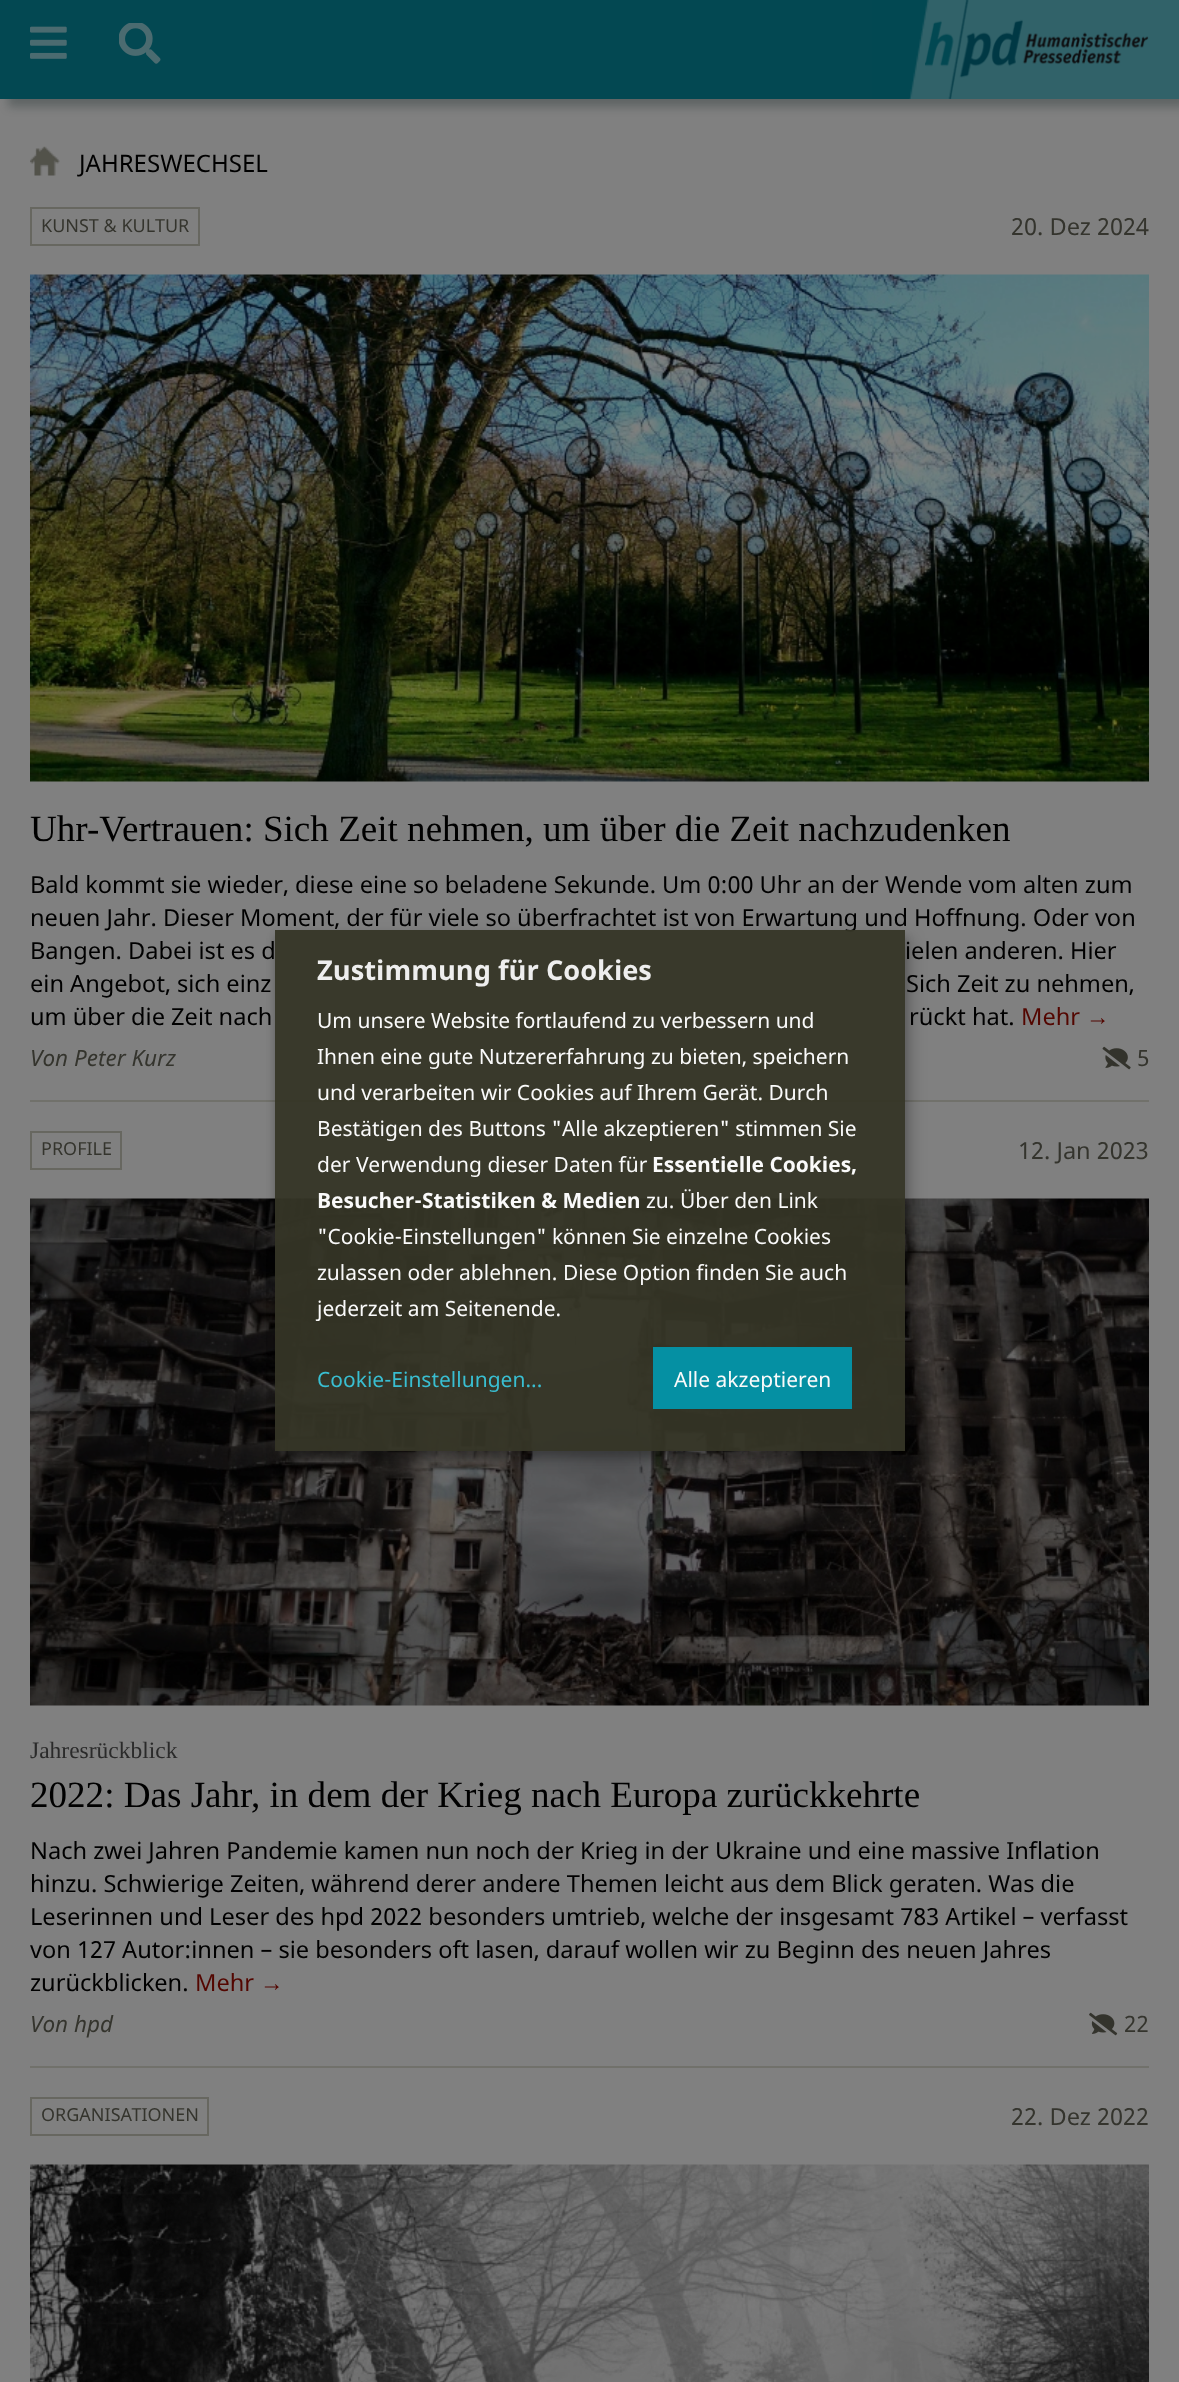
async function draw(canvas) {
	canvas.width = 1179;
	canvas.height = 2382;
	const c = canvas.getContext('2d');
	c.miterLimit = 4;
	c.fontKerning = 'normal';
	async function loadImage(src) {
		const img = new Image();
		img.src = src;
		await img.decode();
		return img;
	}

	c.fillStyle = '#808080';
	c.fillRect(0, 0, 1179, 2382);
	c.fillStyle = '#01121542';
	c.filter = 'blur(5px)';
	c.beginPath();
	c.rect(8, 8, 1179, 99);
	c.fill();
	c.filter = 'none';
	c.fillStyle = '#034852';
	c.fillRect(0, 0, 872, 99);
	c.fillStyle = '#316269';
	c.fillRect(908, 0, 271, 99);
	c.drawImage(await loadImage('img1.png'), 872, 0, 57, 99);
	c.drawImage(await loadImage('img2.png'), 925, 0, 224, 99);
	c.drawImage(await loadImage('img3.png'), 30, 26, 37, 33);
	c.drawImage(await loadImage('img4.png'), 119, 23, 42, 41);
	c.drawImage(await loadImage('img5.png'), 30, 146, 30, 30);
	c.font = '24px Noto Sans';
	c.fillStyle = '#000';
	c.fillText('JAHRESWECHSEL', 79, 172);
	c.fillStyle = '#71716b';
	c.fillRect(30, 1100, 1119, 2);
	c.strokeStyle = '#676760';
	c.lineWidth = 2;
	c.strokeRect(31, 208, 168, 37);
	c.font = '18px Noto Sans';
	c.fillStyle = '#34342d';
	c.fillText('KUNST & KULTUR', 41, 232);
	c.font = '23.6px Noto Sans';
	c.fillText('20. Dez 2024', 1011, 235);
	c.drawImage(await loadImage('img6.png'), 30, 274, 1119, 508);
	c.font = '37.1px Liberation Serif';
	c.fillStyle = '#000';
	c.fillText('Uhr-Vertrauen: Sich Zeit nehmen, um über die Zeit nachzudenken', 30, 841);
	c.font = '23.6px Noto Sans';
	for (const [text, x, y] of [
		['Bald kommt sie wieder, diese eine so beladene Sekunde. Um 0:00 Uhr an der Wende vom alten zum', 30, 893],
		['neuen Jahr. Dieser Moment, der für viele so überfrachtet ist von Erwartung und Hoffnung. Oder von', 30, 926],
		['Bangen. Dabei ist es d', 30, 959],
		['ielen anderen. Hier', 905, 959],
		['ein Angebot, sich einz', 30, 992],
		['Sich Zeit zu nehmen,', 906, 992],
		['um über die Zeit nach', 30, 1025],
		['rückt hat.', 909, 1025],
	]) {
		c.fillText(text, x, y);
	}
	c.fillStyle = '#530600';
	c.fillText('Mehr', 1021, 1025);
	c.font = '23.6px Liberation Sans';
	c.fillText('→', 1086, 1025);
	c.font = 'italic 22.5px Noto Sans';
	c.fillStyle = '#34342d';
	c.fillText('Von Peter Kurz', 30, 1066);
	c.drawImage(await loadImage('img7.png'), 1102, 1046, 29, 24);
	c.font = '22.5px Noto Sans';
	c.fillText('5', 1137, 1066);
	c.fillStyle = '#71716b';
	c.fillRect(30, 2066, 1119, 2);
	c.strokeRect(31, 1132, 90, 37);
	c.font = '18px Noto Sans';
	c.fillStyle = '#34342d';
	c.fillText('PROFILE', 41, 1155);
	c.font = '23.6px Noto Sans';
	c.fillText('12. Jan 2023', 1018, 1159);
	c.drawImage(await loadImage('img8.png'), 30, 1198, 1119, 508);
	c.font = '23.5px Liberation Serif';
	c.fillStyle = '#2a2a2a';
	c.fillText('Jahresrückblick', 30, 1758);
	c.font = '37.1px Liberation Serif';
	c.fillStyle = '#000';
	c.fillText('2022: Das Jahr, in dem der Krieg nach Europa zurückkehrte', 30, 1807);
	c.font = '23.6px Noto Sans';
	for (const [text, x, y] of [
		['Nach zwei Jahren Pandemie kamen nun noch der Krieg in der Ukraine und eine massive Inflation', 30, 1859],
		['hinzu. Schwierige Zeiten, während derer andere Themen leicht aus dem Blick geraten. Was die', 30, 1892],
		['Leserinnen und Leser des hpd 2022 besonders umtrieb, welche der insgesamt 783 Artikel – verfasst', 30, 1925],
		['von 127 Autor:innen – sie besonders oft lasen, darauf wollen wir zu Beginn des neuen Jahres', 30, 1958],
		['zurückblicken.', 30, 1991],
	]) {
		c.fillText(text, x, y);
	}
	c.fillStyle = '#530600';
	c.fillText('Mehr', 195, 1991);
	c.font = '23.6px Liberation Sans';
	c.fillText('→', 260, 1991);
	c.font = 'italic 22.5px Noto Sans';
	c.fillStyle = '#34342d';
	c.fillText('Von hpd', 30, 2032);
	c.drawImage(await loadImage('img9.png'), 1089, 2012, 29, 24);
	c.font = '22.5px Noto Sans';
	c.fillText('22', 1124, 2032);
	c.strokeRect(31, 2098, 177, 37);
	c.font = '18px Noto Sans';
	c.fillText('ORGANISATIONEN', 41, 2121);
	c.font = '23.6px Noto Sans';
	c.fillText('22. Dez 2022', 1011, 2125);
	c.drawImage(await loadImage('img10.png'), 30, 2164, 1119, 218);
	c.save();
	c.beginPath();
	c.moveTo(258, 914);
	c.lineTo(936, 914);
	c.lineTo(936, 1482);
	c.lineTo(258, 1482);
	c.closePath();
	c.moveTo(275, 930);
	c.lineTo(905, 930);
	c.lineTo(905, 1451);
	c.lineTo(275, 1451);
	c.closePath();
	c.clip('evenodd');
	c.fillStyle = '#00000030';
	c.filter = 'blur(7.5px)';
	c.beginPath();
	c.rect(282, 938, 630, 520);
	c.fill();
	c.filter = 'none';
	c.restore();
	c.save();
	c.beginPath();
	c.moveTo(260, 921);
	c.lineTo(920, 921);
	c.lineTo(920, 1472);
	c.lineTo(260, 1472);
	c.closePath();
	c.moveTo(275, 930);
	c.lineTo(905, 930);
	c.lineTo(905, 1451);
	c.lineTo(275, 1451);
	c.closePath();
	c.clip('evenodd');
	c.fillStyle = '#00000033';
	c.filter = 'blur(4.5px)';
	c.beginPath();
	c.rect(275, 936, 630, 521);
	c.fill();
	c.filter = 'none';
	c.restore();
	c.fillStyle = '#353526f2';
	c.fillRect(275, 930, 630, 521);
	c.font = 'bold 27.25px Noto Sans';
	c.fillStyle = '#eee';
	c.fillText('Zustimmung für Cookies', 317, 980);
	c.font = '21px Noto Sans';
	c.fillStyle = '#fafafa';
	for (const [text, x, y] of [
		['Um unsere Website fortlaufend zu verbessern und', 317, 1028],
		['Ihnen eine gute Nutzererfahrung zu bieten, speichern', 317, 1064],
		['und verarbeiten wir Cookies auf Ihrem Gerät. Durch', 317, 1100],
		['Bestätigen des Buttons "Alle akzeptieren" stimmen Sie', 317, 1136],
		['der Verwendung dieser Daten für', 317, 1172],
	]) {
		c.fillText(text, x, y);
	}
	c.font = 'bold 21px Noto Sans';
	c.fillText('Essentielle Cookies,', 652, 1172);
	c.fillText('Besucher-Statistiken & Medien', 317, 1208);
	c.font = '21px Noto Sans';
	for (const [text, x, y] of [
		['zu. Über den Link', 646, 1208],
		['"Cookie-Einstellungen" können Sie einzelne Cookies', 317, 1244],
		['zulassen oder ablehnen. Diese Option finden Sie auch', 317, 1280],
		['jederzeit am Seitenende.', 317, 1316],
	]) {
		c.fillText(text, x, y);
	}
	c.fillStyle = '#39bed1';
	c.fillText('Cookie-Einstellungen...', 317, 1387);
	c.fillStyle = '#0590a3';
	c.fillRect(653, 1347, 199, 62);
	c.fillStyle = '#fafafa';
	c.fillText('Alle akzeptieren', 674, 1387);
}

draw(document.querySelector('canvas'));
